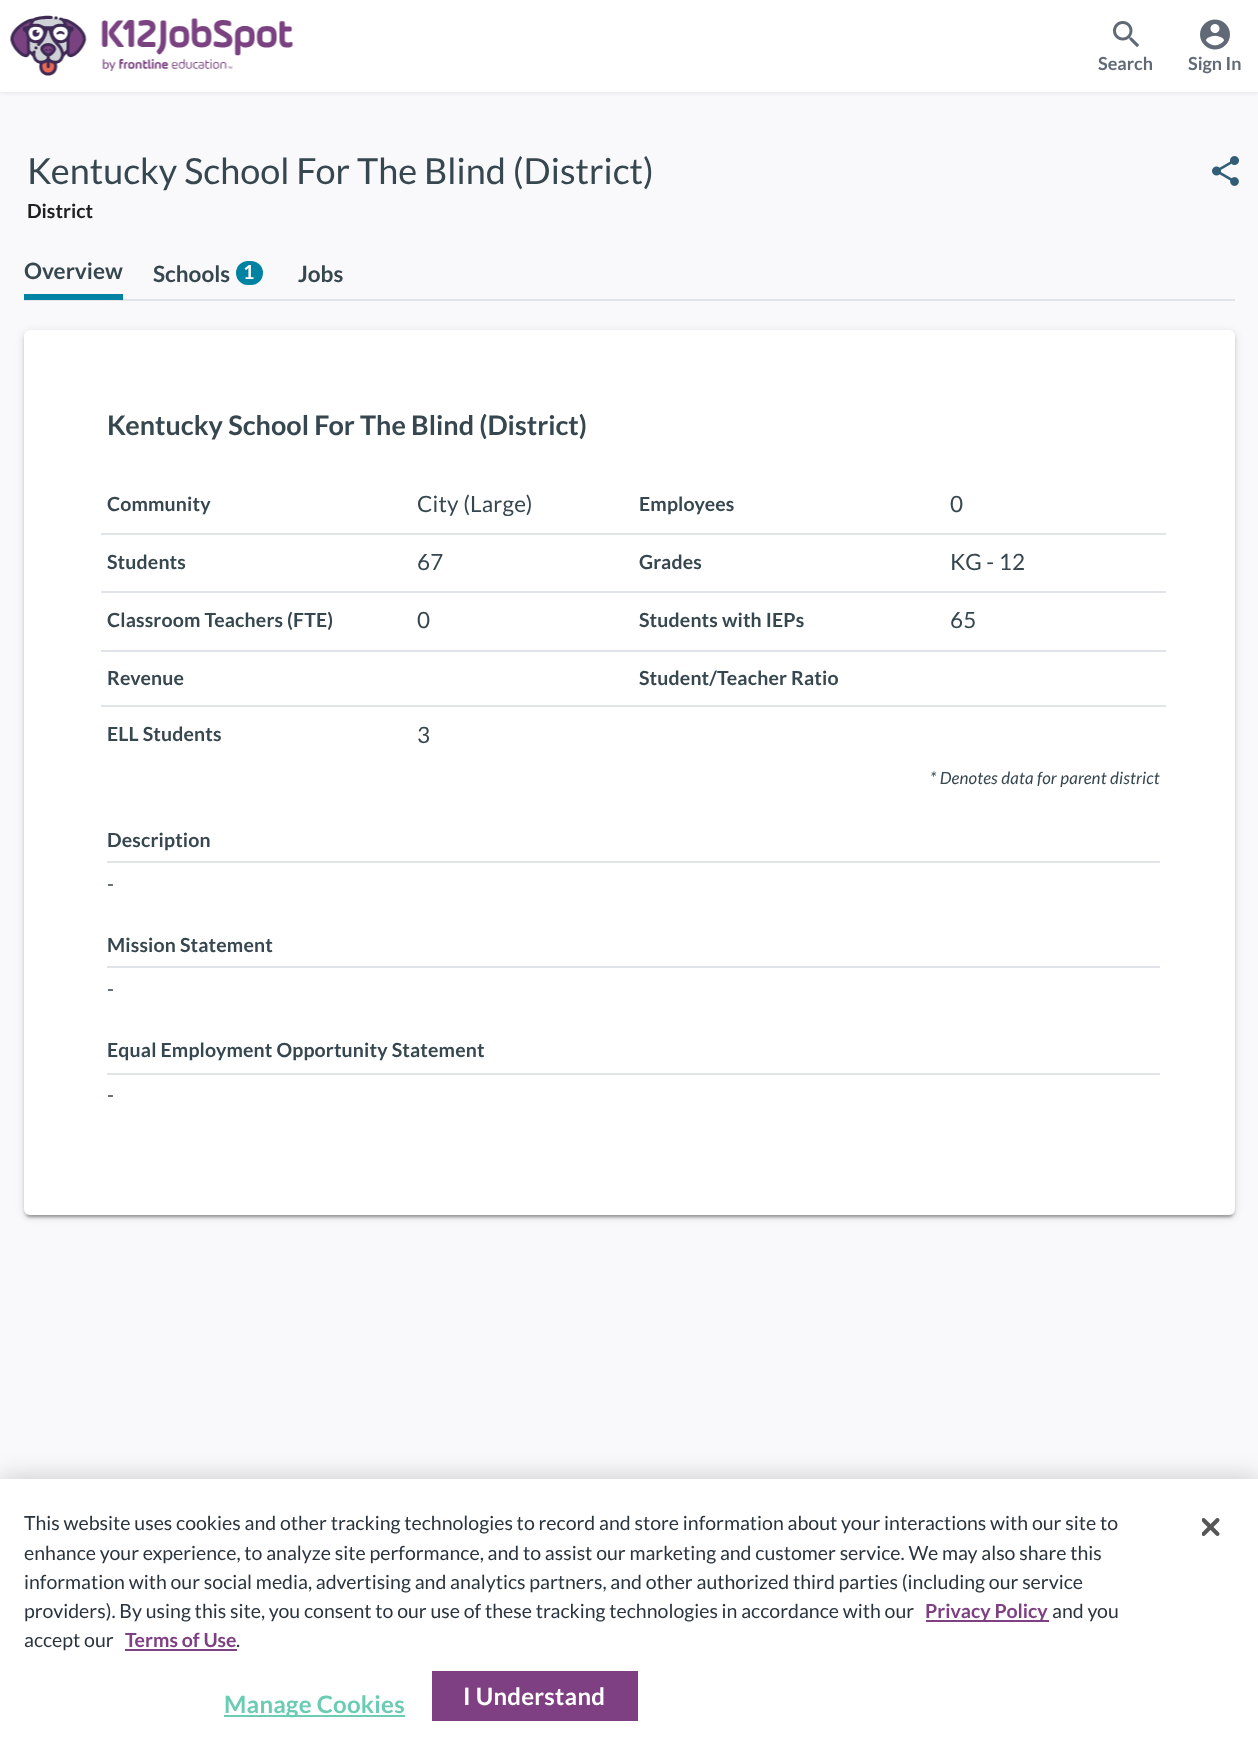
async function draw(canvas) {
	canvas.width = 1258;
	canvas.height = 1762;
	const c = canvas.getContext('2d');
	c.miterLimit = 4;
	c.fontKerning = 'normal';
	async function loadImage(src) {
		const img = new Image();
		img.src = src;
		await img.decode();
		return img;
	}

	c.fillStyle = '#f9f9fb';
	c.fillRect(0, 0, 1258, 1762);
	c.fillStyle = '#303a451a';
	c.filter = 'blur(2px)';
	c.beginPath();
	c.rect(0, 2, 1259, 91);
	c.fill();
	c.filter = 'none';
	c.fillStyle = '#fff';
	c.fillRect(0, 0, 1258, 92);
	c.drawImage(await loadImage('img1.png'), 10, 15, 283, 61);
	c.drawImage(await loadImage('img2.png'), 1113, 21, 27, 27);
	c.font = 'bold 18px Lato';
	c.fillStyle = '#606975';
	c.fillText('Search', 1098, 70);
	c.drawImage(await loadImage('img3.png'), 1200, 19, 30, 31);
	c.fillText('Sign In', 1188, 70);
	c.font = '36px Lato';
	c.fillStyle = '#37474f';
	c.fillText('Kentucky School For The Blind (District)', 27, 184);
	c.font = 'bold 19.5px Lato';
	c.fillStyle = '#202021';
	c.fillText('District', 27, 218);
	c.drawImage(await loadImage('img4.png'), 1212, 156, 27, 30);
	c.fillStyle = '#e0e4e8';
	c.fillRect(24, 299, 1211, 2);
	c.fillStyle = '#0082a3';
	c.fillRect(24, 294, 99, 6);
	c.font = 'bold 22.5px Lato';
	c.fillStyle = '#37474f';
	c.fillText('Overview', 24, 279);
	c.fillText('Schools', 153, 282);
	c.fillStyle = '#0082a3';
	c.beginPath();
	c.roundRect(236, 261, 27, 24, 12);
	c.fill();
	c.font = 'bold 19.5px Lato';
	c.fillStyle = '#fff';
	c.fillText('1', 243, 279);
	c.font = 'bold 22.5px Lato';
	c.fillStyle = '#37474f';
	c.fillText('Jobs', 298, 282);
	c.fillStyle = '#0000001f';
	c.filter = 'blur(4px)';
	c.beginPath();
	c.roundRect(24, 332, 1211, 885, 6);
	c.fill();
	c.filter = 'none';
	c.fillStyle = '#00000024';
	c.filter = 'blur(1.5px)';
	c.beginPath();
	c.roundRect(24, 333, 1211, 885, 6);
	c.fill();
	c.filter = 'none';
	c.fillStyle = '#00000033';
	c.filter = 'blur(1px)';
	c.beginPath();
	c.roundRect(27, 338, 1205, 879, 3);
	c.fill();
	c.filter = 'none';
	c.fillStyle = '#fff';
	c.beginPath();
	c.roundRect(24, 330, 1211, 885, 6);
	c.fill();
	c.font = 'bold 27px Lato';
	c.fillStyle = '#37474f';
	c.fillText('Kentucky School For The Blind (District)', 107, 435);
	c.fillStyle = '#e0e4e8';
	c.fillRect(101, 533, 1065, 2);
	c.letterSpacing = '0.15px';
	c.font = 'bold 19.5px Lato';
	c.fillStyle = '#37474f';
	c.fillText('Community', 107, 511);
	c.font = '22.5px Lato';
	c.fillText('City (Large)', 417, 512);
	c.font = 'bold 19.5px Lato';
	c.fillText('Employees', 639, 511);
	c.font = '22.5px Lato';
	c.fillText('0', 950, 512);
	c.fillStyle = '#e0e4e8';
	c.fillRect(101, 591, 1065, 2);
	c.font = 'bold 19.5px Lato';
	c.fillStyle = '#37474f';
	c.fillText('Students', 107, 569);
	c.font = '22.5px Lato';
	c.fillText('67', 417, 570);
	c.font = 'bold 19.5px Lato';
	c.fillText('Grades', 639, 569);
	c.font = '22.5px Lato';
	c.fillText('KG - 12', 950, 570);
	c.fillStyle = '#e0e4e8';
	c.fillRect(101, 650, 1065, 2);
	c.font = 'bold 19.5px Lato';
	c.fillStyle = '#37474f';
	c.fillText('Classroom Teachers (FTE)', 107, 627);
	c.font = '22.5px Lato';
	c.fillText('0', 417, 628);
	c.font = 'bold 19.5px Lato';
	c.fillText('Students with IEPs', 639, 627);
	c.font = '22.5px Lato';
	c.fillText('65', 950, 628);
	c.fillStyle = '#e0e4e8';
	c.fillRect(101, 705, 1065, 2);
	c.font = 'bold 19.5px Lato';
	c.fillStyle = '#37474f';
	for (const [text, x, y] of [
		['Revenue', 107, 685],
		['Student/Teacher Ratio', 639, 685],
		['ELL Students', 107, 741],
	]) {
		c.fillText(text, x, y);
	}
	c.font = '22.5px Lato';
	c.fillText('3', 417, 743);
	c.font = 'italic 16.9px Lato';
	c.fillText('* Denotes data for parent district', 930, 784);
	c.font = 'bold 19.5px Lato';
	c.fillText('Description', 107, 847);
	c.fillStyle = '#e0e4e8';
	c.fillRect(107, 861, 1053, 2);
	c.font = '20px Lato';
	c.fillStyle = '#37474f';
	c.fillText('-', 107, 891);
	c.font = 'bold 19.5px Lato';
	c.fillText('Mission Statement', 107, 952);
	c.fillStyle = '#e0e4e8';
	c.fillRect(107, 966, 1053, 2);
	c.font = '20px Lato';
	c.fillStyle = '#37474f';
	c.fillText('-', 107, 996);
	c.font = 'bold 19.5px Lato';
	c.fillText('Equal Employment Opportunity Statement', 107, 1057);
	c.fillStyle = '#e0e4e8';
	c.fillRect(107, 1073, 1053, 2);
	c.font = '20px Lato';
	c.fillStyle = '#37474f';
	c.fillText('-', 107, 1102);
	c.fillStyle = '#00000033';
	c.filter = 'blur(13.5px)';
	c.beginPath();
	c.rect(0, 1479, 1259, 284);
	c.fill();
	c.filter = 'none';
	c.fillStyle = '#fff';
	c.fillRect(0, 1479, 1258, 283);
	c.letterSpacing = '0px';
	c.font = '19.5px Lato';
	c.fillStyle = '#2a343e';
	for (const [text, x, y] of [
		['This website uses cookies and other tracking technologies to record and store information about your interactions with our site to', 24, 1530],
		['enhance your experience, to analyze site performance, and to assist our marketing and customer service. We may also share this', 24, 1560],
		['information with our social media, advertising and analytics partners, and other authorized third parties (including our service', 24, 1589],
		['providers). By using this site, you consent to our use of these tracking technologies in accordance with our', 24, 1618],
	]) {
		c.fillText(text, x, y);
	}
	c.fillStyle = '#7e4082';
	c.fillRect(926, 1620, 123, 2);
	c.font = 'bold 19.5px Lato';
	c.fillText('Privacy Policy', 925, 1618);
	c.font = '19.5px Lato';
	c.fillStyle = '#2a343e';
	c.fillText('and you', 1052, 1618);
	c.fillText('accept our', 24, 1647);
	c.font = 'bold 19.5px Lato';
	c.fillStyle = '#7e4082';
	c.fillText('Terms of Use', 125, 1647);
	c.fillRect(125, 1649, 112, 2);
	c.font = '19.5px Lato';
	c.fillStyle = '#2a343e';
	c.fillText('.', 236, 1647);
	c.fillStyle = '#6bccb3';
	c.fillRect(224, 1715, 181, 2);
	c.letterSpacing = '0.25px';
	c.font = 'bold 24px Lato';
	c.fillText('Manage Cookies', 224, 1713);
	c.fillStyle = '#7e4082';
	c.fillRect(432, 1671, 206, 50);
	c.fillStyle = '#fff';
	c.fillText('I Understand', 463, 1705);
	c.drawImage(await loadImage('img5.png'), 1202, 1518, 18, 18);
}

draw(document.querySelector('canvas'));
